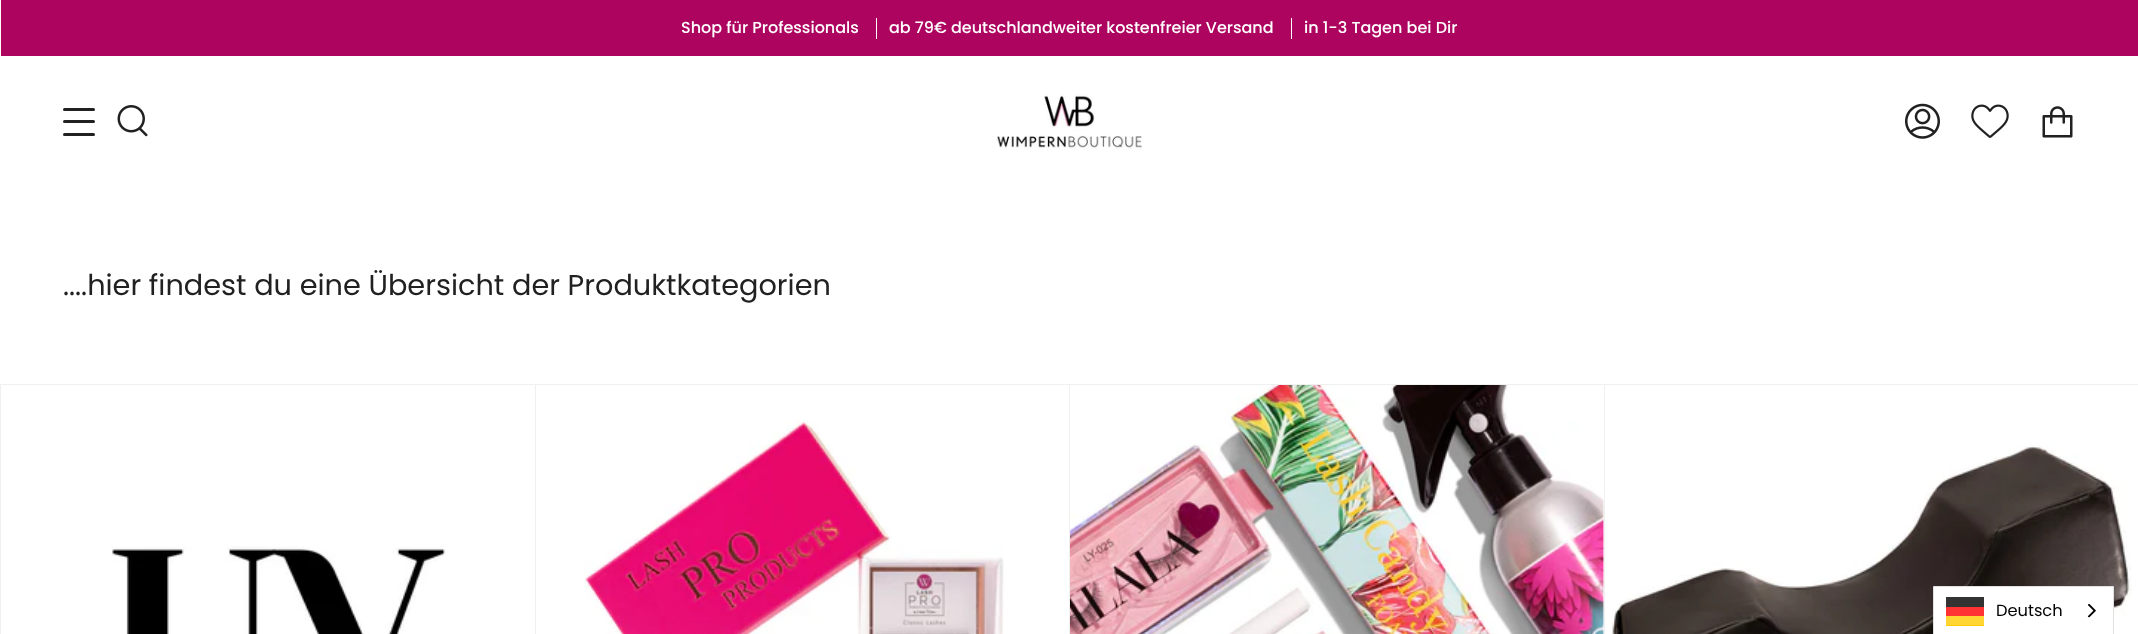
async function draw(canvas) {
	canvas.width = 2138;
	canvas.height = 634;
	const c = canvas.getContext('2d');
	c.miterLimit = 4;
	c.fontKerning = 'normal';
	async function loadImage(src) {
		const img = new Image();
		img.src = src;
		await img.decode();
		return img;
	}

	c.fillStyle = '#fff';
	c.fillRect(0, 0, 2138, 634);
	c.fillStyle = '#ad0460';
	c.fillRect(1, 0, 2137, 56);
	c.font = '500 16px Poppins';
	c.fillStyle = '#fff';
	c.fillText('Shop für Professionals', 681, 33);
	c.fillText('ab 79€ deutschlandweiter kostenfreier Versand', 889, 33);
	c.fillRect(876, 18, 1, 21);
	c.fillText('in 1-3 Tagen bei Dir', 1304, 33);
	c.fillRect(1291, 18, 1, 21);
	c.fillStyle = '#212121';
	c.beginPath();
	c.roundRect(63, 108, 32, 3, 1.5);
	c.fill();
	c.beginPath();
	c.roundRect(63, 120, 32, 3, 1.5);
	c.fill();
	c.beginPath();
	c.roundRect(63, 133, 32, 3, 1.5);
	c.fill();
	c.drawImage(await loadImage('img1.png'), 117, 105, 31, 32);
	c.drawImage(await loadImage('img2.png'), 996, 94, 147, 56);
	c.drawImage(await loadImage('img3.png'), 1905, 103, 35, 36);
	c.drawImage(await loadImage('img4.png'), 1971, 104, 38, 34);
	c.drawImage(await loadImage('img5.png'), 2042, 106, 31, 32);
	c.font = '28.75px Poppins';
	c.fillText('....hier findest du eine Übersicht der Produktkategorien', 63, 295);
	for (const [x, y, w, h, color] of [
		[1, 384, 2137, 1, '#f0f0f0'],
		[535, 384, 1, 250, '#f0f0f0'],
		[0, 384, 1, 250, '#f0f0f0'],
	]) {
		c.fillStyle = color;
		c.fillRect(x, y, w, h);
	}
	c.drawImage(await loadImage('img6.png'), 111, 546, 335, 88);
	c.fillRect(1069, 384, 1, 250);
	c.drawImage(await loadImage('img7.png'), 584, 420, 420, 214);
	c.fillRect(1604, 384, 1, 250);
	c.drawImage(await loadImage('img8.png'), 1070, 385, 534, 249);
	c.drawImage(await loadImage('img9.png'), 1611, 445, 521, 189);
	c.fillStyle = '#fff';
	c.beginPath();
	c.rect(1933.5, 586.5, 180, 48);
	c.fill();
	c.strokeStyle = '#e0e0e0';
	c.stroke();
	for (const [x, y, w, h, color] of [
		[1946, 616, 38, 10, '#fc0'],
		[1946, 597, 38, 10, '#000001'],
		[1946, 607, 38, 9, '#f00'],
		[1946, 597, 38, 28, '#ffffff33'],
	]) {
		c.fillStyle = color;
		c.fillRect(x, y, w, h);
	}
	c.font = '16.25px Poppins';
	c.fillStyle = '#000';
	c.fillText('Deutsch', 1996, 616);
	c.drawImage(await loadImage('img10.png'), 2087, 604, 9, 14);
}

draw(document.querySelector('canvas'));
